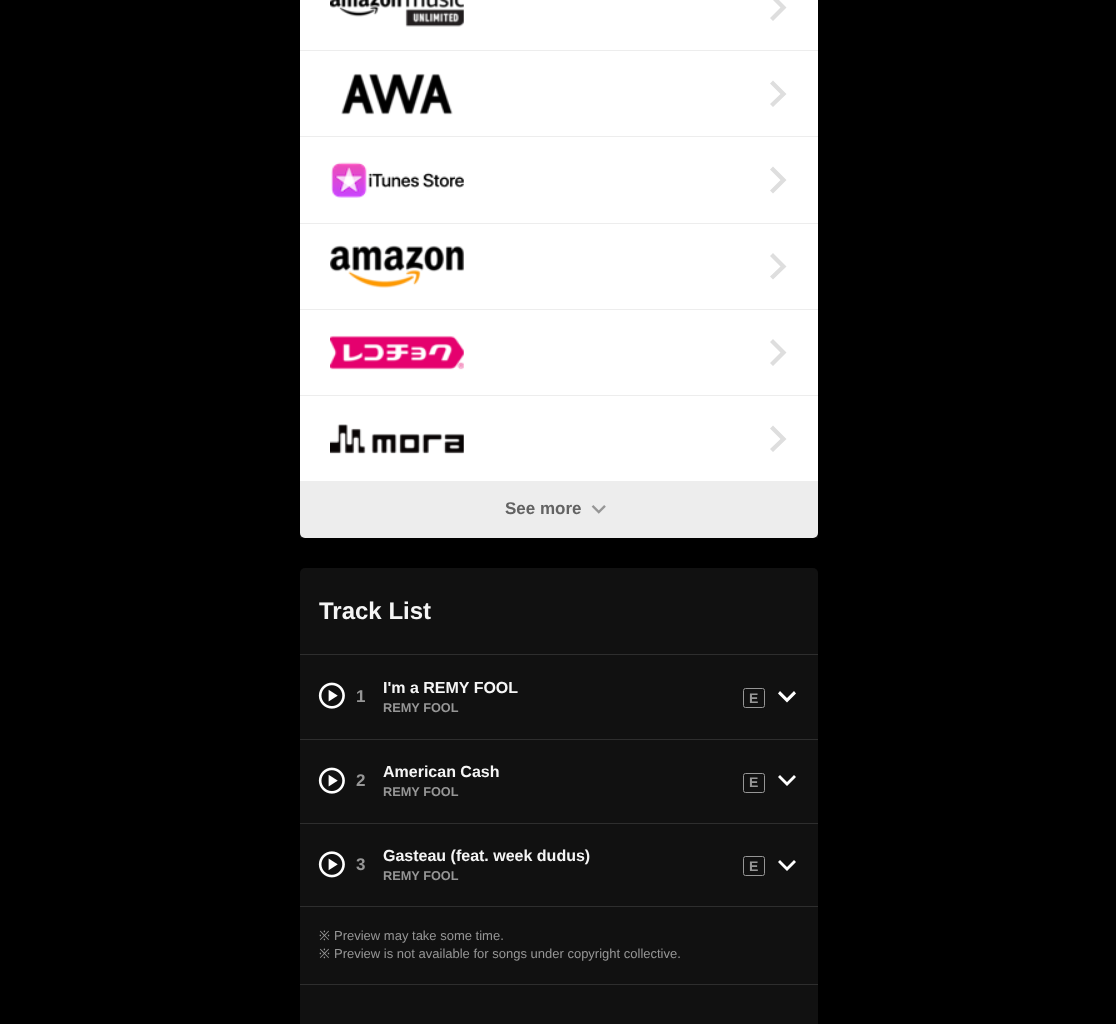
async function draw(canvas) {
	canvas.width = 1116;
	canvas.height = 1024;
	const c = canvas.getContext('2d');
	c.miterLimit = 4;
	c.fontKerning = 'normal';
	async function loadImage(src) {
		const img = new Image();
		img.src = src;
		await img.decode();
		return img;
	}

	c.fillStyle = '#000';
	c.fillRect(0, 0, 1116, 1024);
	c.fillStyle = '#111';
	c.fillRect(300, 533, 518, 5);
	c.fillStyle = '#fff';
	c.fillRect(300, 0, 518, 481);
	c.drawImage(await loadImage('img1.png'), 330, 0, 134, 27);
	c.fillStyle = '#dedede';
	c.beginPath();
	c.moveTo(770, 18);
	c.lineTo(780.5, 7.5);
	c.lineTo(770, -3);
	c.lineTo(773, -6);
	c.lineTo(786.5, 7.5);
	c.lineTo(773, 21);
	c.closePath();
	c.fill();
	c.fillStyle = '#ededed';
	c.fillRect(300, 50, 518, 1);
	c.drawImage(await loadImage('img2.png'), 341, 73, 112, 42);
	c.fillStyle = '#dedede';
	c.beginPath();
	c.moveTo(770, 104);
	c.lineTo(780.5, 94);
	c.lineTo(770, 83.5);
	c.lineTo(773, 80.5);
	c.lineTo(786.5, 94);
	c.lineTo(773, 107);
	c.closePath();
	c.fill();
	c.fillStyle = '#ededed';
	c.fillRect(300, 136, 518, 1);
	c.drawImage(await loadImage('img3.png'), 331, 162, 133, 36);
	c.fillStyle = '#dedede';
	c.beginPath();
	c.moveTo(770, 190.5);
	c.lineTo(780.5, 180);
	c.lineTo(770, 169.5);
	c.lineTo(773, 166.5);
	c.lineTo(786.5, 180);
	c.lineTo(773, 193.5);
	c.closePath();
	c.fill();
	c.fillStyle = '#ededed';
	c.fillRect(300, 223, 518, 1);
	c.drawImage(await loadImage('img4.png'), 330, 245, 134, 43);
	c.fillStyle = '#dedede';
	c.beginPath();
	c.moveTo(770, 276.5);
	c.lineTo(780.5, 266.5);
	c.lineTo(770, 256);
	c.lineTo(773, 253);
	c.lineTo(786.5, 266.5);
	c.lineTo(773, 279.5);
	c.closePath();
	c.fill();
	c.fillStyle = '#ededed';
	c.fillRect(300, 309, 518, 1);
	c.drawImage(await loadImage('img5.png'), 330, 335, 134, 35);
	c.fillStyle = '#dedede';
	c.beginPath();
	c.moveTo(770, 363);
	c.lineTo(780.5, 352.5);
	c.lineTo(770, 342);
	c.lineTo(773, 339);
	c.lineTo(786.5, 352.5);
	c.lineTo(773, 366);
	c.closePath();
	c.fill();
	c.fillStyle = '#ededed';
	c.fillRect(300, 395, 518, 1);
	c.drawImage(await loadImage('img6.png'), 330, 424, 134, 30);
	c.fillStyle = '#dedede';
	c.beginPath();
	c.moveTo(770, 449);
	c.lineTo(780.5, 439);
	c.lineTo(770, 428.5);
	c.lineTo(773, 425.5);
	c.lineTo(786.5, 439);
	c.lineTo(773, 452);
	c.closePath();
	c.fill();
	c.fillStyle = '#ededed';
	c.beginPath();
	c.roundRect(300, 481, 518, 57, [0, 0, 5, 5]);
	c.fill();
	c.font = 'bold 17px Liberation Sans';
	c.fillStyle = '#636363';
	c.fillText('See more', 505, 514);
	c.drawImage(await loadImage('img7.png'), 591, 505, 15, 9);
	c.fillStyle = '#111';
	c.beginPath();
	c.roundRect(300, 568, 518, 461, 5);
	c.fill();
	c.fillStyle = '#2e2e2e';
	c.fillRect(300, 654, 518, 1);
	c.font = 'bold 24px Liberation Sans';
	c.fillStyle = '#f5f5f5';
	c.fillText('Track List', 319, 619);
	c.fillStyle = '#2e2e2e';
	c.fillRect(300, 984, 518, 1);
	c.fillRect(300, 739, 518, 1);
	c.drawImage(await loadImage('img8.png'), 318, 682, 27, 27);
	c.font = 'bold 17px Liberation Sans';
	c.fillStyle = '#969696';
	c.fillText('1', 356, 702);
	c.font = 'bold 16px Liberation Sans';
	c.fillStyle = '#f5f5f5';
	c.fillText('I\'m a REMY FOOL', 383, 693);
	c.font = 'bold 12.75px Liberation Sans';
	c.fillStyle = '#969696';
	c.fillText('REMY FOOL', 383, 712);
	c.beginPath();
	c.roundRect(743.5, 688.5, 21, 19, 2);
	c.strokeStyle = '#969696';
	c.stroke();
	c.font = 'bold 14px Liberation Sans';
	c.fillText('E', 749, 703);
	c.fillStyle = '#fff';
	c.beginPath();
	c.moveTo(794, 691);
	c.lineTo(787, 698);
	c.lineTo(780, 691);
	c.lineTo(778, 693.5);
	c.lineTo(787, 702.5);
	c.lineTo(796, 693.5);
	c.closePath();
	c.fill();
	c.fillStyle = '#2e2e2e';
	c.fillRect(300, 823, 518, 1);
	c.drawImage(await loadImage('img8.png'), 318, 767, 27, 27);
	c.font = 'bold 17px Liberation Sans';
	c.fillStyle = '#969696';
	c.fillText('2', 356, 786);
	c.font = 'bold 16px Liberation Sans';
	c.fillStyle = '#f5f5f5';
	c.fillText('American Cash', 383, 777);
	c.font = 'bold 12.75px Liberation Sans';
	c.fillStyle = '#969696';
	c.fillText('REMY FOOL', 383, 796);
	c.beginPath();
	c.roundRect(743.5, 773.5, 21, 19, 2);
	c.stroke();
	c.font = 'bold 14px Liberation Sans';
	c.fillText('E', 749, 787);
	c.fillStyle = '#fff';
	c.beginPath();
	c.moveTo(794, 775);
	c.lineTo(787, 782);
	c.lineTo(780, 775);
	c.lineTo(778, 777);
	c.lineTo(787, 786);
	c.lineTo(796, 777);
	c.closePath();
	c.fill();
	c.fillStyle = '#2e2e2e';
	c.fillRect(300, 906, 518, 1);
	c.drawImage(await loadImage('img9.png'), 318, 851, 27, 27);
	c.font = 'bold 17px Liberation Sans';
	c.fillStyle = '#969696';
	c.fillText('3', 356, 870);
	c.font = 'bold 16px Liberation Sans';
	c.fillStyle = '#f5f5f5';
	c.fillText('Gasteau (feat. week dudus)', 383, 861);
	c.font = 'bold 12.75px Liberation Sans';
	c.fillStyle = '#969696';
	c.fillText('REMY FOOL', 383, 880);
	c.beginPath();
	c.roundRect(743.5, 856.5, 21, 19, 2);
	c.stroke();
	c.font = 'bold 14px Liberation Sans';
	c.fillText('E', 749, 871);
	c.fillStyle = '#fff';
	c.beginPath();
	c.moveTo(794, 860);
	c.lineTo(787, 867);
	c.lineTo(780, 860);
	c.lineTo(778, 862);
	c.lineTo(787, 871);
	c.lineTo(796, 862);
	c.closePath();
	c.fill();
	c.font = '13px Noto Sans';
	c.fillStyle = '#969696';
	c.fillText('※', 319, 940);
	c.font = '13px Liberation Sans';
	c.fillText('Preview may take some time.', 334, 940);
	c.font = '13px Noto Sans';
	c.fillText('※', 319, 958);
	c.font = '13px Liberation Sans';
	c.fillText('Preview is not available for songs under copyright collective.', 334, 958);
}

draw(document.querySelector('canvas'));
